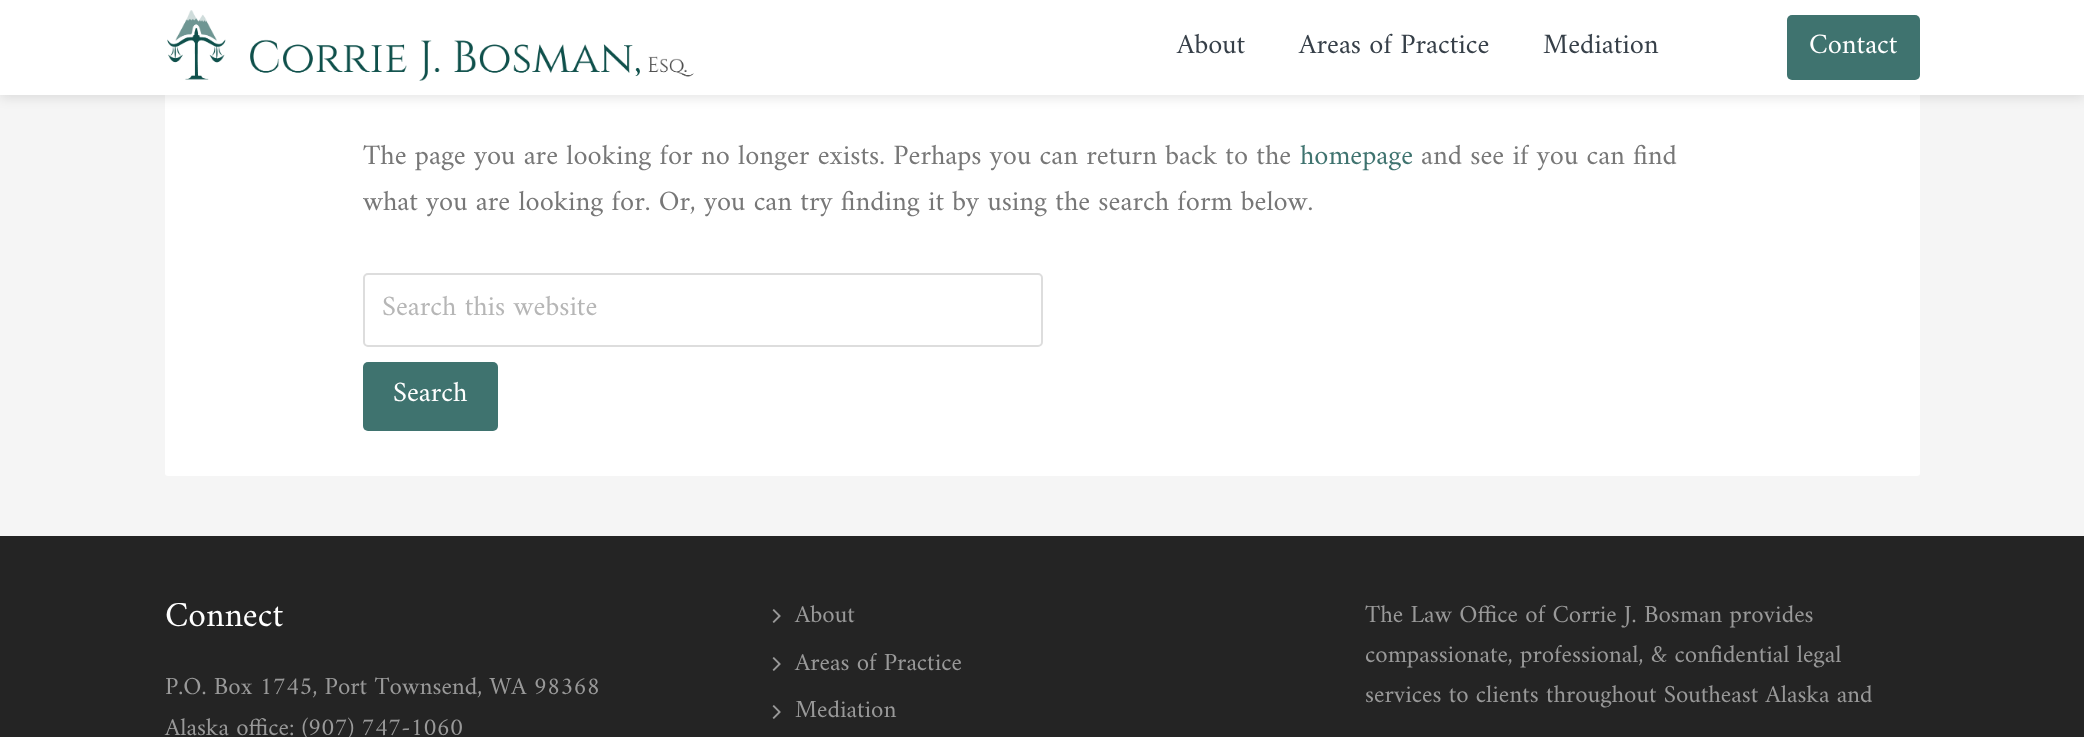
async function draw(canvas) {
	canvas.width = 2084;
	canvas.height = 737;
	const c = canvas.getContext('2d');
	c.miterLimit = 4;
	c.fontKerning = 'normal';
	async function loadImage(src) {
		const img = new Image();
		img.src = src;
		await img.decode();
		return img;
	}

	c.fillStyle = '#f5f5f5';
	c.fillRect(0, 0, 2084, 737);
	c.fillStyle = '#fff';
	c.beginPath();
	c.roundRect(165, -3, 1755, 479, 3);
	c.fill();
	c.fillStyle = '#0000001a';
	c.filter = 'blur(6px)';
	c.beginPath();
	c.rect(0, 3, 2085, 95);
	c.fill();
	c.filter = 'none';
	c.fillStyle = '#fff';
	c.fillRect(0, 0, 2084, 95);
	c.drawImage(await loadImage('img1.png'), 167, 10, 527, 71);
	c.font = '28.4px Amiri';
	c.fillStyle = '#363f48';
	for (const [text, x, y] of [
		['About', 1177, 53],
		['Areas of Practice', 1299, 53],
		['Mediation', 1543, 53],
	]) {
		c.fillText(text, x, y);
	}
	c.fillStyle = '#3f736f';
	c.beginPath();
	c.roundRect(1787, 15, 133, 65, 5);
	c.fill();
	c.fillStyle = '#fff';
	c.fillText('Contact', 1809, 53);
	c.fillStyle = '#777';
	c.fillText('The page you are looking for no longer exists. Perhaps you can return back to the', 363, 164);
	c.fillStyle = '#3f736f';
	c.fillText('homepage', 1300, 164);
	c.fillStyle = '#777';
	c.fillText('and see if you can find', 1421, 164);
	c.fillText('what you are looking for. Or, you can try finding it by using the search form below.', 363, 210);
	c.beginPath();
	c.roundRect(364, 274, 678, 72, 4);
	c.strokeStyle = '#ddd';
	c.lineWidth = 2;
	c.stroke();
	c.fillStyle = '#b6b6b6';
	c.fillText('Search this website', 382, 315);
	c.fillStyle = '#3f736f';
	c.beginPath();
	c.roundRect(363, 362, 135, 69, 5);
	c.fill();
	c.fillStyle = '#fff';
	c.fillText('Search', 393, 401);
	c.fillStyle = '#242424';
	c.fillRect(0, 536, 2084, 201);
	c.font = '35.5px Amiri';
	c.fillStyle = '#fff';
	c.fillText('Connect', 165, 626);
	c.font = '24.9px Amiri';
	c.fillStyle = '#999';
	c.fillText('P.O. Box 1745, Port Townsend, WA 98368', 165, 694);
	c.fillText('Alaska office: (907) 747-1060', 165, 735);
	c.drawImage(await loadImage('img2.png'), 772, 609, 9, 14);
	c.fillText('About', 795, 622);
	c.drawImage(await loadImage('img2.png'), 772, 657, 9, 14);
	c.fillText('Areas of Practice', 795, 670);
	c.drawImage(await loadImage('img2.png'), 772, 705, 9, 14);
	for (const [text, x, y] of [
		['Mediation', 795, 717],
		['The Law Office of Corrie J. Bosman provides', 1365, 622],
		['compassionate, professional, & confidential legal', 1365, 662],
		['services to clients throughout Southeast Alaska and', 1365, 702],
	]) {
		c.fillText(text, x, y);
	}
}

draw(document.querySelector('canvas'));
